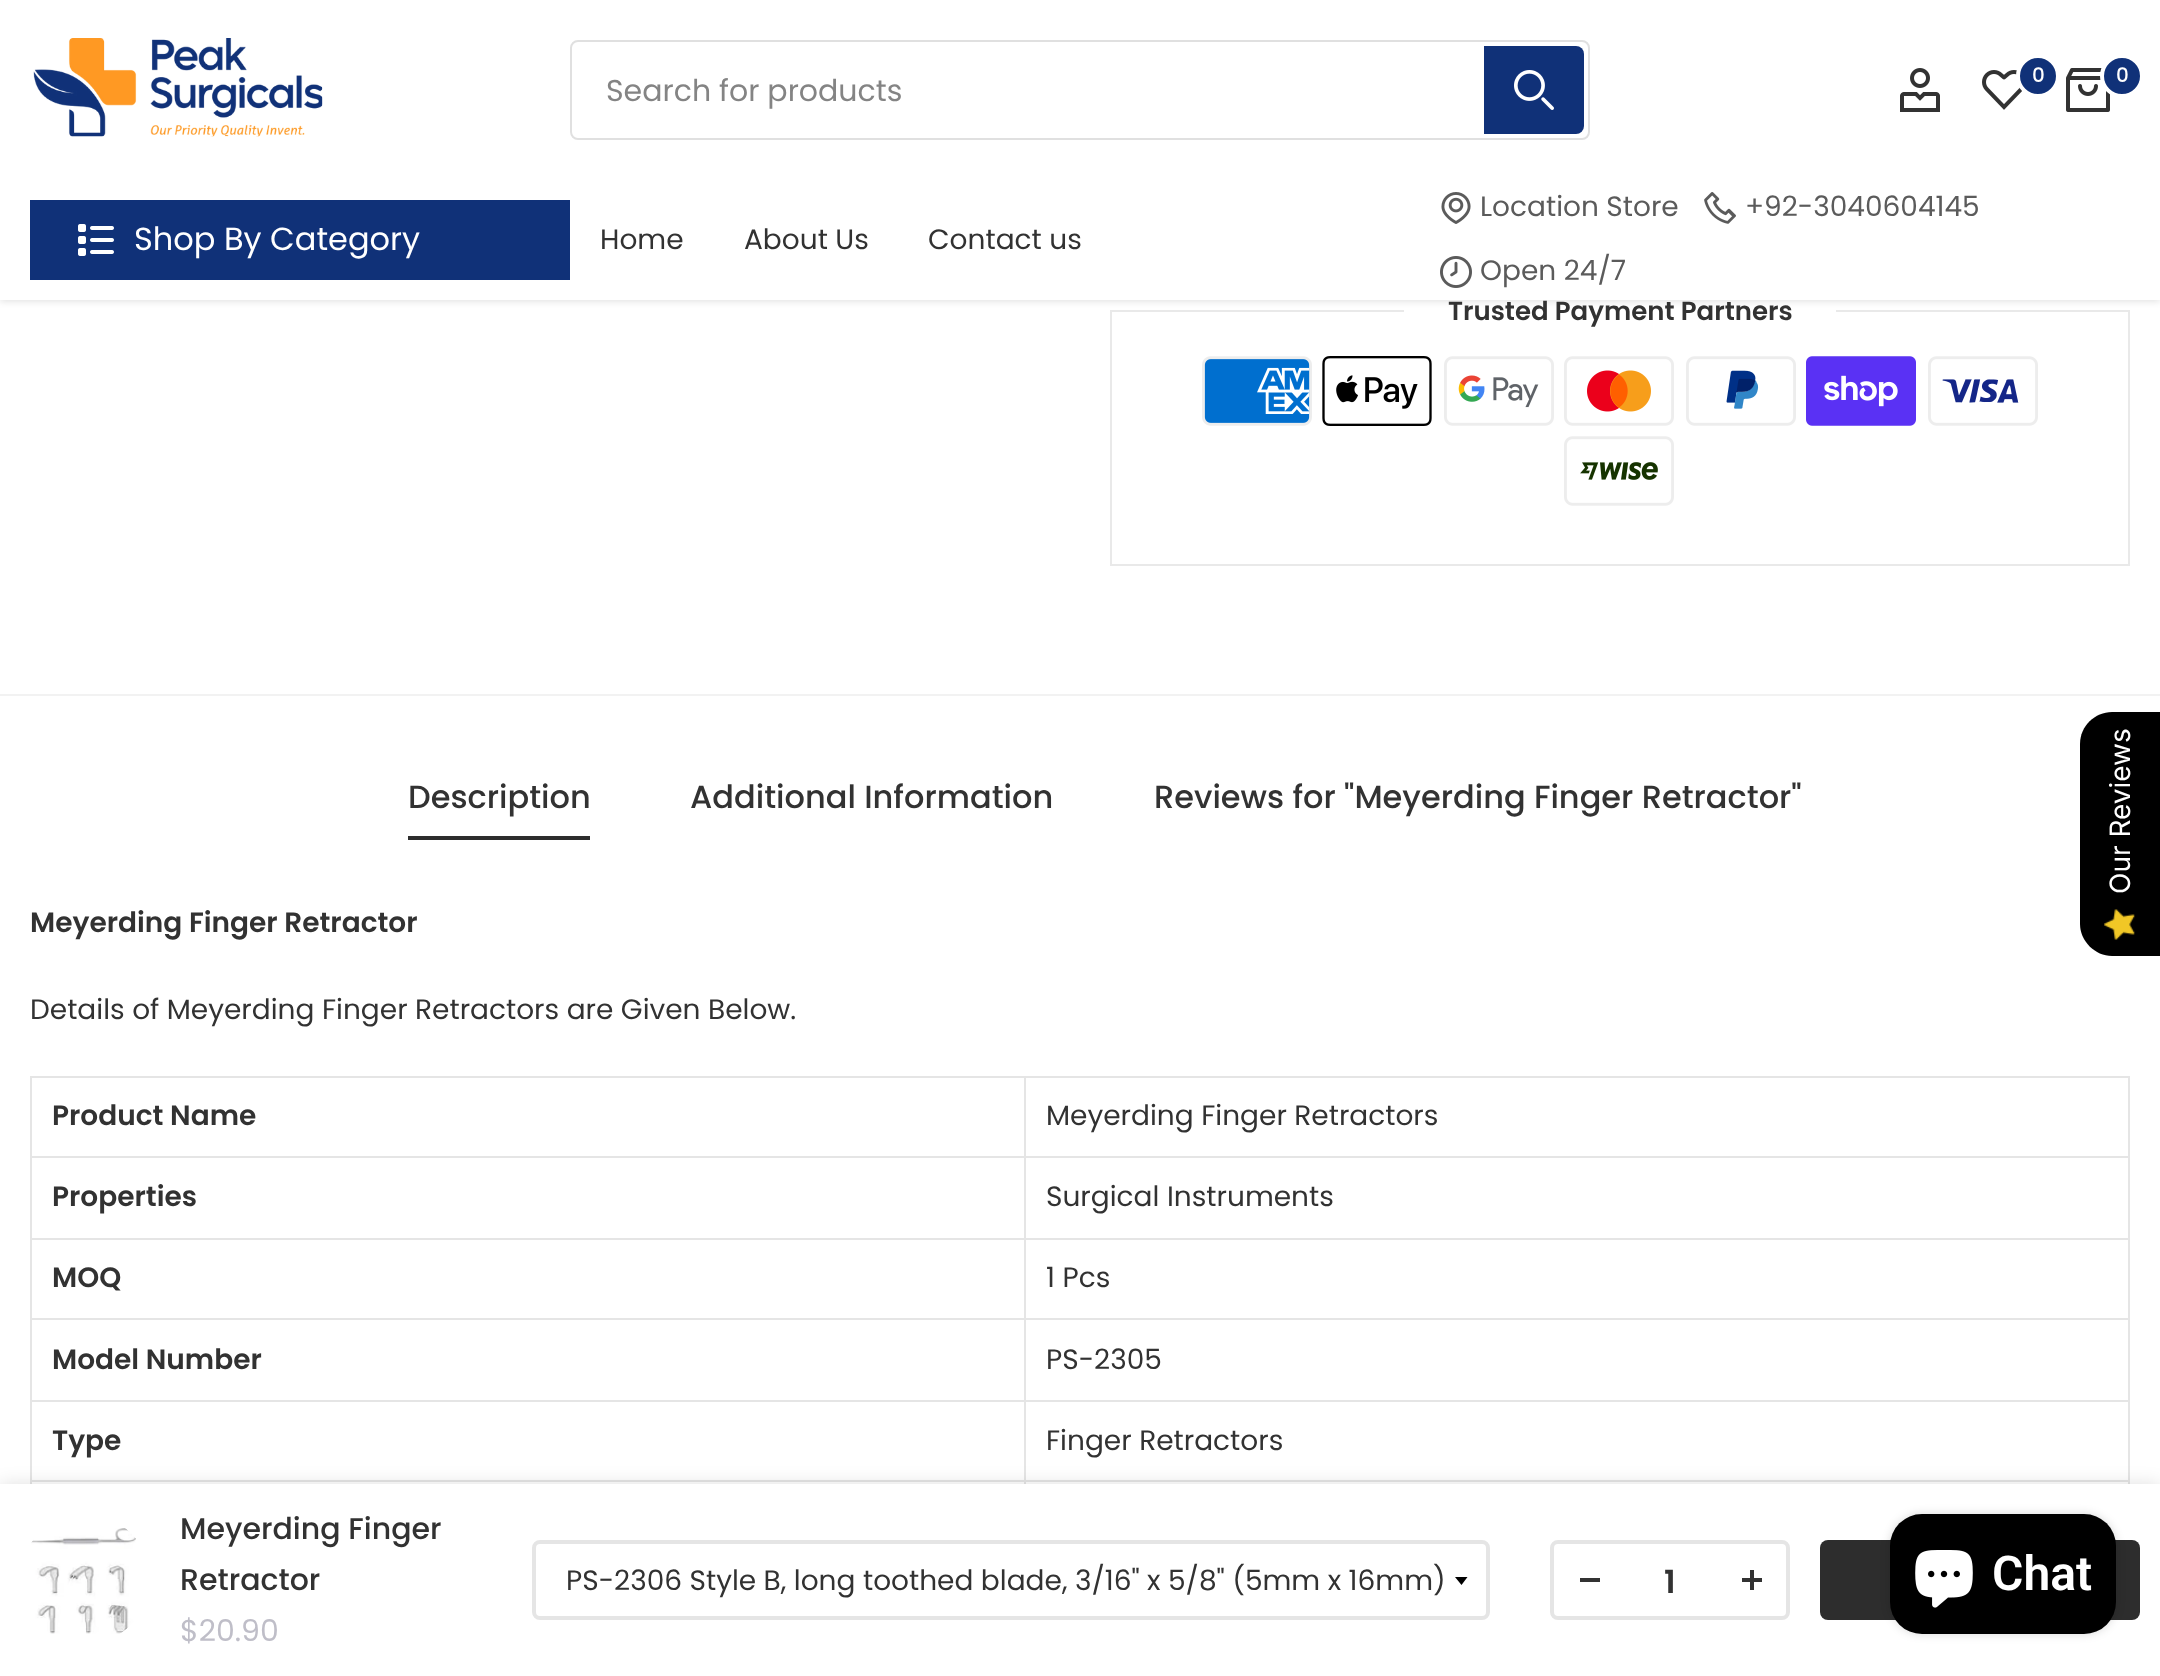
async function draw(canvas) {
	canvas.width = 2160;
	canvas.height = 1676;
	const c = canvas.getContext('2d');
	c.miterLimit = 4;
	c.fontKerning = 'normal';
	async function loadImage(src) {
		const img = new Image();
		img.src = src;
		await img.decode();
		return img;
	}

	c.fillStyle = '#fff';
	c.fillRect(0, 0, 2160, 1676);
	c.strokeStyle = '#e9e9e9';
	c.lineWidth = 2;
	c.strokeRect(1111, 311, 1018, 254);
	c.fillRect(1404, 310, 432, 2);
	c.fillStyle = '#0000001a';
	c.filter = 'blur(3px)';
	c.beginPath();
	c.rect(0, 2, 2160, 300);
	c.fill();
	c.filter = 'none';
	c.fillStyle = '#fff';
	c.fillRect(0, 0, 2160, 300);
	c.drawImage(await loadImage('img1.png'), 33, 38, 290, 99);
	c.drawImage(await loadImage('img2.png'), 1900, 68, 40, 44);
	c.drawImage(await loadImage('img3.png'), 1982, 70, 40, 40);
	c.fillStyle = '#103178';
	c.beginPath();
	c.arc(2038, 76, 20, 0, 2 * Math.PI);
	c.fill();
	c.strokeStyle = '#fff';
	c.lineWidth = 4;
	c.stroke();
	c.font = '500 20px Poppins';
	c.fillStyle = '#fff';
	c.fillText('0', 2032, 82);
	c.drawImage(await loadImage('img4.png'), 2066, 68, 44, 44);
	c.fillStyle = '#103178';
	c.beginPath();
	c.arc(2122, 76, 20, 0, 2 * Math.PI);
	c.fill();
	c.stroke();
	c.fillStyle = '#fff';
	c.fillText('0', 2116, 82);
	c.beginPath();
	c.roundRect(571, 41, 1018, 98, 7);
	c.strokeStyle = '#e0e0e0';
	c.lineWidth = 2;
	c.stroke();
	c.font = '30px Poppins';
	c.fillStyle = '#848484';
	c.fillText('Search for products', 606, 101);
	c.fillStyle = '#103178';
	c.beginPath();
	c.roundRect(1484, 46, 100, 88, [0, 8, 8, 0]);
	c.fill();
	c.drawImage(await loadImage('img5.png'), 1514, 70, 40, 40);
	c.fillRect(30, 200, 540, 80);
	c.drawImage(await loadImage('img6.png'), 78, 224, 36, 32);
	c.font = '32px Poppins';
	c.fillStyle = '#fff';
	c.fillText('Shop By Category', 134, 250);
	c.font = '28px Poppins';
	c.fillStyle = '#323232';
	for (const [text, x, y] of [
		['Home', 600, 249],
		['About Us', 744, 249],
		['Contact us', 928, 249],
	]) {
		c.fillText(text, x, y);
	}
	c.drawImage(await loadImage('img7.png'), 1441, 192, 30, 32);
	c.fillStyle = '#5b5b5b';
	c.fillText('Location Store', 1480, 216);
	c.drawImage(await loadImage('img8.png'), 1704, 192, 32, 32);
	c.fillText('+92-3040604145', 1745, 216);
	c.drawImage(await loadImage('img9.png'), 1440, 256, 32, 32);
	c.fillText('Open 24/7', 1480, 280);
	c.font = '600 26px Poppins';
	c.fillStyle = '#323232';
	c.fillText('Trusted Payment Partners', 1448, 320);
	c.drawImage(await loadImage('img10.png'), 1202, 356, 110, 70);
	c.drawImage(await loadImage('img11.png'), 1322, 356, 110, 70);
	c.drawImage(await loadImage('img12.png'), 1444, 356, 110, 70);
	c.drawImage(await loadImage('img13.png'), 1564, 356, 110, 70);
	c.drawImage(await loadImage('img14.png'), 1686, 356, 110, 70);
	c.drawImage(await loadImage('img15.png'), 1806, 356, 110, 70);
	c.drawImage(await loadImage('img16.png'), 1928, 356, 110, 70);
	c.drawImage(await loadImage('img17.png'), 1564, 436, 110, 70);
	c.fillStyle = '#f2f2f2';
	c.fillRect(0, 694, 2160, 2);
	c.font = '500 32px Poppins';
	c.fillStyle = '#323232';
	c.fillText('Description', 408, 808);
	c.fillStyle = '#2d2d2d';
	c.fillRect(408, 836, 182, 4);
	c.fillStyle = '#323232';
	c.fillText('Additional Information', 690, 808);
	c.fillText('Reviews for "Meyerding Finger Retractor"', 1154, 808);
	c.font = '600 28px Poppins';
	c.fillText('Meyerding Finger Retractor', 30, 932);
	c.font = '28px Poppins';
	c.fillText('Details of Meyerding Finger Retractors are Given Below.', 30, 1019);
	for (const [x, y, w, h, color] of [
		[30, 1076, 2100, 2, '#e5e5e5'],
		[2128, 1076, 2, 408, '#e5e5e5'],
		[30, 1076, 2, 408, '#e5e5e5'],
		[1024, 1480, 2, 4, '#e5e5e5'],
		[1024, 1480, 1106, 2, '#e5e5e5'],
		[1024, 1400, 2, 82, '#e5e5e5'],
		[1024, 1400, 1106, 2, '#e5e5e5'],
		[1024, 1318, 2, 84, '#e5e5e5'],
		[1024, 1318, 1106, 2, '#e5e5e5'],
		[1024, 1238, 2, 82, '#e5e5e5'],
		[1024, 1238, 1106, 2, '#e5e5e5'],
		[1024, 1156, 2, 84, '#e5e5e5'],
		[1024, 1156, 1106, 2, '#e5e5e5'],
		[1024, 1076, 2, 82, '#e5e5e5'],
		[30, 1156, 996, 2, '#e5e5e5'],
	]) {
		c.fillStyle = color;
		c.fillRect(x, y, w, h);
	}
	c.font = '600 28px Poppins';
	c.fillStyle = '#323232';
	c.fillText('Product Name', 52, 1125);
	c.font = '28px Poppins';
	c.fillText('Meyerding Finger Retractors', 1046, 1125);
	c.fillStyle = '#e5e5e5';
	c.fillRect(30, 1238, 996, 2);
	c.font = '600 28px Poppins';
	c.fillStyle = '#323232';
	c.fillText('Properties', 52, 1206);
	c.font = '28px Poppins';
	c.fillText('Surgical Instruments', 1046, 1206);
	c.fillStyle = '#e5e5e5';
	c.fillRect(30, 1318, 996, 2);
	c.font = '600 28px Poppins';
	c.fillStyle = '#323232';
	c.fillText('MOQ', 52, 1287);
	c.font = '28px Poppins';
	c.fillText('1 Pcs', 1046, 1287);
	c.fillStyle = '#e5e5e5';
	c.fillRect(30, 1400, 996, 2);
	c.font = '600 28px Poppins';
	c.fillStyle = '#323232';
	c.fillText('Model Number', 52, 1369);
	c.font = '28px Poppins';
	c.fillText('PS-2305', 1046, 1369);
	c.fillStyle = '#e5e5e5';
	c.fillRect(30, 1480, 996, 2);
	c.font = '600 28px Poppins';
	c.fillStyle = '#323232';
	c.fillText('Type', 52, 1450);
	c.font = '28px Poppins';
	c.fillText('Finger Retractors', 1046, 1450);
	c.fillStyle = '#000';
	c.beginPath();
	c.moveTo(2080, 924);
	c.lineTo(2080, 744);
	c.bezierCurveTo(2080, 726, 2095, 712, 2112, 712);
	c.lineTo(2160, 712);
	c.lineTo(2160, 956);
	c.lineTo(2112, 956);
	c.bezierCurveTo(2095, 956, 2080, 941, 2080, 924);
	c.closePath();
	c.fill();
	c.font = '28px Inter';
	c.fillStyle = '#fff';
	c.save();
	c.translate(2130, 894);
	c.rotate(-90 * Math.PI / 180);
	c.fillText('Our Reviews', 0, 0);
	c.restore();
	c.drawImage(await loadImage('img18.png'), 2104, 909, 31, 31);
	c.fillStyle = '#0000001f';
	c.filter = 'blur(9px)';
	c.beginPath();
	c.rect(0, 1484, 2160, 192);
	c.fill();
	c.filter = 'none';
	c.fillStyle = '#fff';
	c.fillRect(0, 1484, 2160, 192);
	c.drawImage(await loadImage('img19.png'), 31, 1528, 105, 106);
	c.font = '500 30px Poppins';
	c.fillStyle = '#323232';
	c.fillText('Meyerding Finger', 180, 1539);
	c.fillText('Retractor', 180, 1590);
	c.font = '30px Poppins';
	c.fillStyle = '#bfbec8';
	c.fillText('$20.90', 180, 1641);
	c.beginPath();
	c.roundRect(534, 1542, 954, 76, 6);
	c.strokeStyle = '#e5e5e5';
	c.lineWidth = 4;
	c.stroke();
	c.font = '28px Poppins';
	c.fillStyle = '#323232';
	c.fillText('PS-2306 Style B, long toothed blade, 3/16" x 5/8" (5mm x 16mm)', 566, 1590);
	c.fillStyle = '#000';
	c.beginPath();
	c.moveTo(1455, 1577);
	c.lineTo(1467.5, 1577);
	c.lineTo(1461.5, 1585);
	c.closePath();
	c.fill();
	c.beginPath();
	c.roundRect(1552, 1542, 236, 76, 6);
	c.stroke();
	c.fillStyle = '#323232';
	c.fillRect(1580, 1578, 20, 4);
	c.font = '600 32px Poppins';
	c.fillText('1', 1664, 1593);
	c.drawImage(await loadImage('img20.png'), 1742, 1570, 20, 20);
	c.fillStyle = '#2d2d2d';
	c.beginPath();
	c.roundRect(1820, 1540, 320, 80, 8);
	c.fill();
	c.fillStyle = '#00000026';
	c.filter = 'blur(5px)';
	c.beginPath();
	c.roundRect(1890, 1514, 226, 120, 32);
	c.fill();
	c.filter = 'none';
	c.fillStyle = '#000';
	c.beginPath();
	c.roundRect(1890, 1514, 226, 120, 32);
	c.fill();
	c.drawImage(await loadImage('img21.png'), 1915, 1550, 58, 58);
	c.font = '600 48px Roboto';
	c.fillStyle = '#fff';
	c.fillText('Chat', 1992, 1590);
}

draw(document.querySelector('canvas'));
